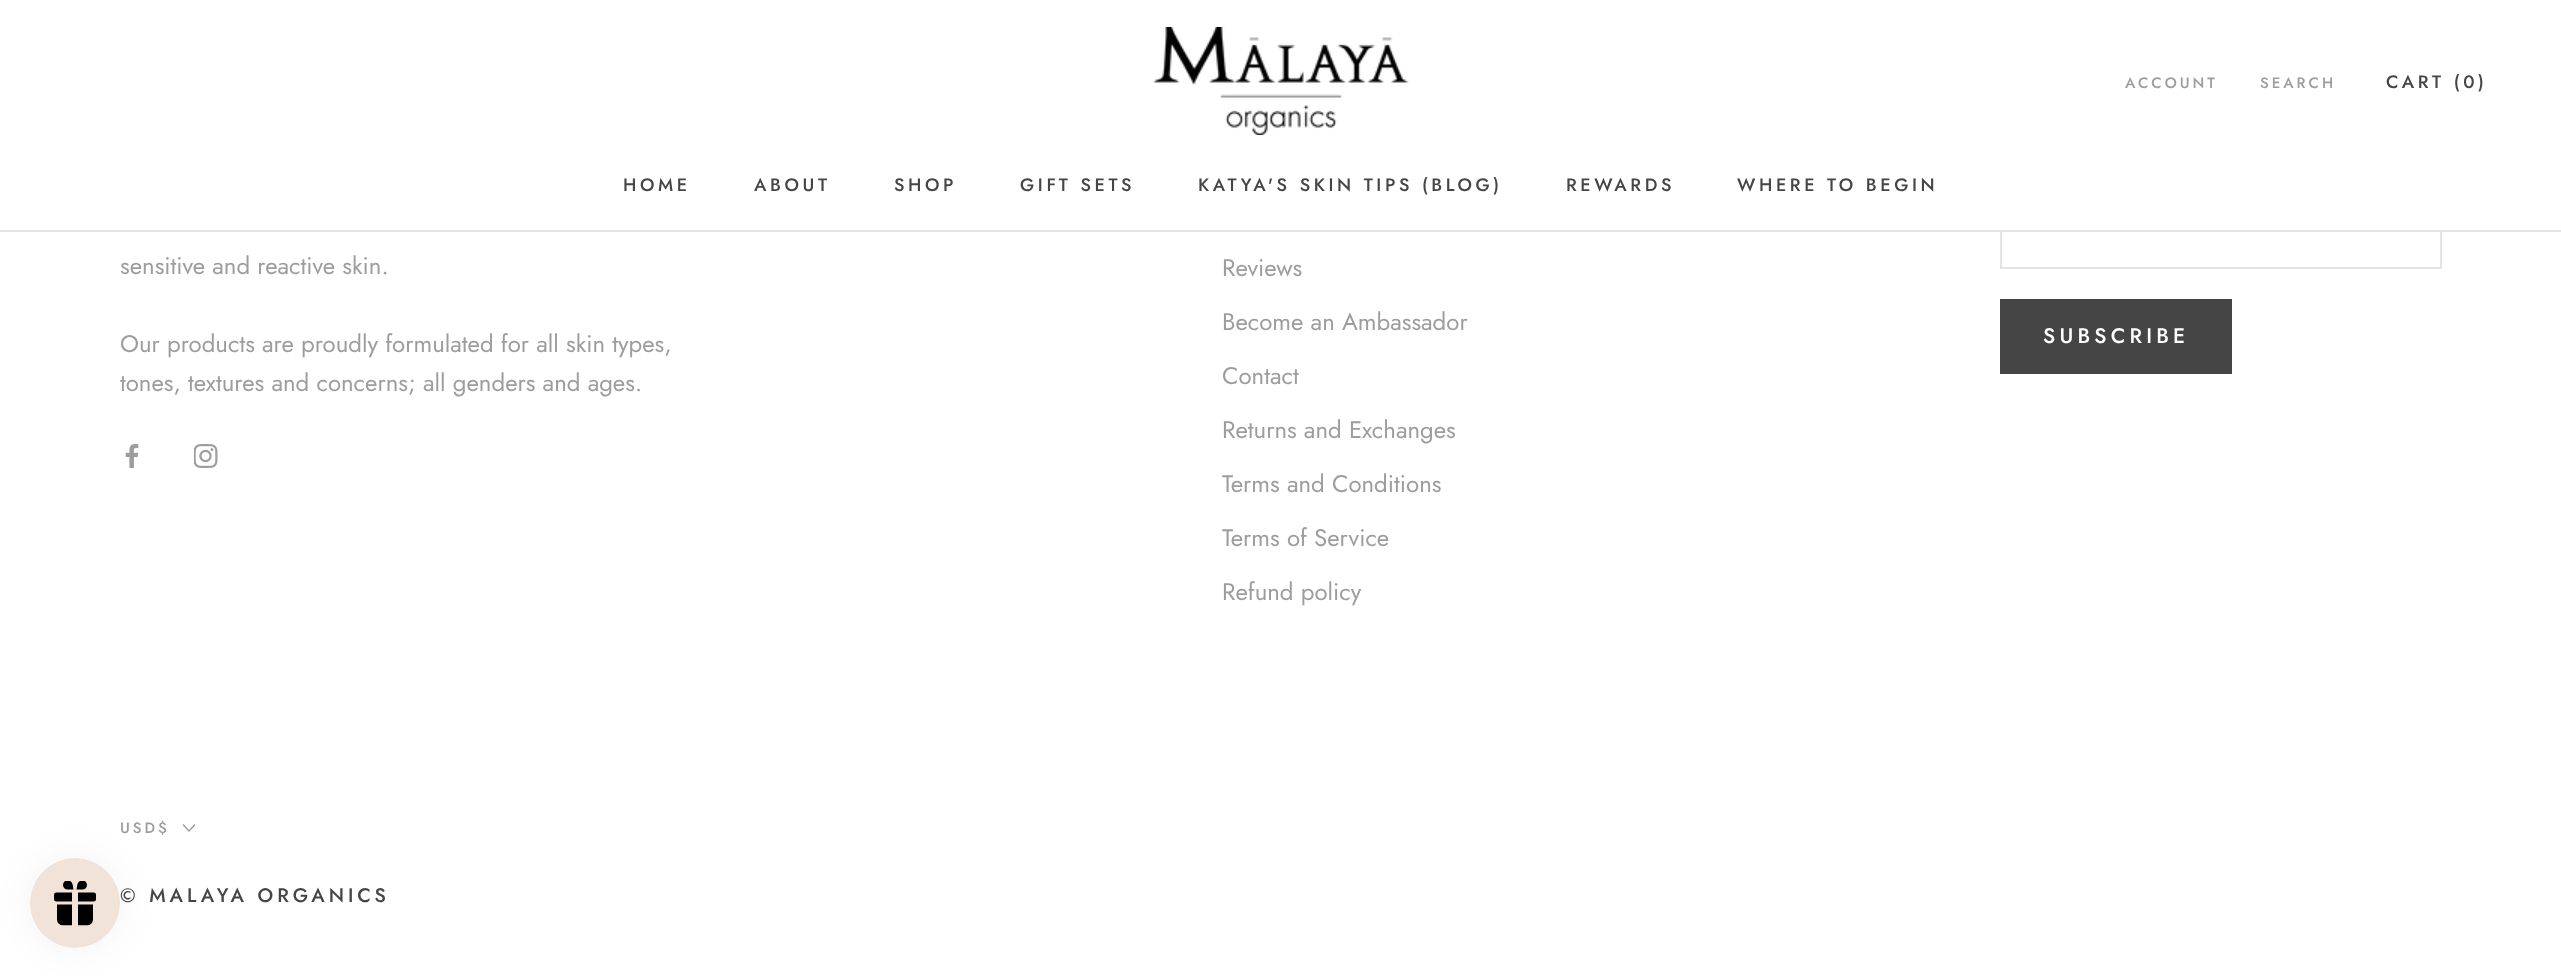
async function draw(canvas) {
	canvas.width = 2561;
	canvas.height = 978;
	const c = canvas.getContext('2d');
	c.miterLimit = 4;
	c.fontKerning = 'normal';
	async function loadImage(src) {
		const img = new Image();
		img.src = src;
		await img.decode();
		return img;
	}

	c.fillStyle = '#fff';
	c.fillRect(0, 0, 2561, 978);
	c.fillStyle = '#0000000d';
	c.filter = 'blur(19px)';
	c.beginPath();
	c.roundRect(30, 858, 90, 90, 45);
	c.fill();
	c.filter = 'none';
	c.drawImage(await loadImage('img1.png'), 30, 858, 90, 90);
	c.strokeStyle = '#e3e3e3';
	c.lineWidth = 2;
	c.strokeRect(2001, 196, 440, 72);
	c.fillStyle = '#fff';
	c.fillRect(2000, 195, 442, 35);
	c.fillStyle = '#e3e3e3';
	c.fillRect(0, 230, 2561, 2);
	c.drawImage(await loadImage('img2.png'), 1153, 27, 256, 108);
	c.letterSpacing = '3px';
	c.font = '500 15px Jost';
	c.fillStyle = '#9d9d9d';
	c.fillText('ACCOUNT', 2125, 88);
	c.fillText('SEARCH', 2260, 88);
	c.letterSpacing = '3.6px';
	c.font = '500 18px Jost';
	c.fillStyle = '#454545';
	for (const [text, x, y] of [
		['CART (0)', 2386, 88],
		['HOME', 623, 191],
		['ABOUT', 754, 191],
		['SHOP', 894, 191],
		['GIFT SETS', 1020, 191],
		['KATYA\'S SKIN TIPS (BLOG)', 1198, 191],
		['REWARDS', 1566, 191],
		['WHERE TO BEGIN', 1737, 191],
	]) {
		c.fillText(text, x, y);
	}
	c.letterSpacing = '0px';
	c.font = '24px Jost';
	c.fillStyle = '#9d9d9d';
	for (const [text, x, y] of [
		['sensitive and reactive skin.', 120, 274],
		['Our products are proudly formulated for all skin types,', 120, 352],
		['tones, textures and concerns; all genders and ages.', 120, 391],
	]) {
		c.fillText(text, x, y);
	}
	c.drawImage(await loadImage('img3.png'), 125, 444, 14, 24);
	c.drawImage(await loadImage('img4.png'), 194, 444, 24, 24);
	for (const [text, x, y] of [
		['Reviews', 1222, 276],
		['Become an Ambassador', 1222, 330],
		['Contact', 1222, 384],
		['Returns and Exchanges', 1222, 438],
		['Terms and Conditions', 1222, 492],
		['Terms of Service', 1222, 546],
		['Refund policy', 1222, 600],
	]) {
		c.fillText(text, x, y);
	}
	c.strokeStyle = '#454545';
	c.strokeRect(2001, 300, 230, 73);
	c.fillStyle = '#454545';
	c.fillRect(2002, 301, 228, 71);
	c.letterSpacing = '4.25px';
	c.font = '500 21px Jost';
	c.fillStyle = '#fff';
	c.fillText('SUBSCRIBE', 2043, 343);
	c.letterSpacing = '3px';
	c.font = '500 15px Jost';
	c.fillStyle = '#9d9d9d';
	c.fillText('USD$', 120, 833);
	c.beginPath();
	c.moveTo(194.5, 825);
	c.lineTo(189, 831);
	c.lineTo(183.5, 825);
	c.strokeStyle = '#9d9d9d';
	c.lineWidth = 1.5;
	c.lineCap = 'square';
	c.stroke();
	c.letterSpacing = '3.9px';
	c.font = '500 19.5px Jost';
	c.fillStyle = '#454545';
	c.fillText('© MALAYA ORGANICS', 120, 902);
}

draw(document.querySelector('canvas'));
